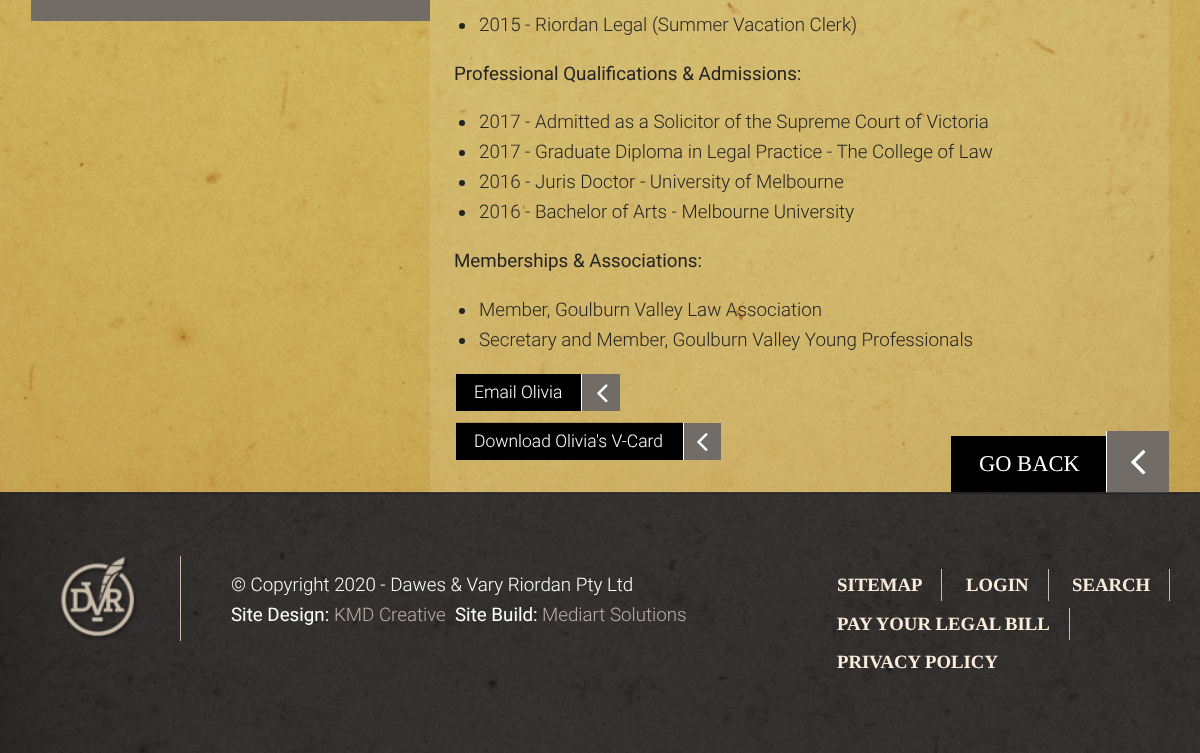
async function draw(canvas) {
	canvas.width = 1200;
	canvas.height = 753;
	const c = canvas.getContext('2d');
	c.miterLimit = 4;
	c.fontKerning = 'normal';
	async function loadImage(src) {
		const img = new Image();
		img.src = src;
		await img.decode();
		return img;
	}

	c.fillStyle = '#fff';
	c.fillRect(0, 0, 1200, 753);
	c.drawImage(await loadImage('img1.png'), 0, 492, 1200, 1);
	c.drawImage(await loadImage('img2.png'), 0, 0, 1200, 493);
	c.fillStyle = '#726c66';
	c.fillRect(31, 0, 399, 21);
	c.fillStyle = '#ffffff1a';
	c.fillRect(430, 0, 739, 493);
	c.fillStyle = '#232323';
	c.beginPath();
	c.arc(462, 26, 3, 0, 2 * Math.PI);
	c.fill();
	c.font = '300 18.75px Roboto';
	c.fillText('2015 - Riordan Legal (Summer Vacation Clerk)', 479, 31);
	c.font = '18.75px Roboto';
	c.fillText('Professional Qualifications & Admissions:', 454, 80);
	c.beginPath();
	c.arc(462, 123, 3, 0, 2 * Math.PI);
	c.fill();
	c.font = '300 18.75px Roboto';
	c.fillText('2017 - Admitted as a Solicitor of the Supreme Court of Victoria', 479, 128);
	c.beginPath();
	c.arc(462, 153, 3, 0, 2 * Math.PI);
	c.fill();
	c.fillText('2017 - Graduate Diploma in Legal Practice - The College of Law', 479, 158);
	c.beginPath();
	c.arc(462, 183, 3, 0, 2 * Math.PI);
	c.fill();
	c.fillText('2016 - Juris Doctor - University of Melbourne', 479, 188);
	c.beginPath();
	c.arc(462, 213, 3, 0, 2 * Math.PI);
	c.fill();
	c.fillText('2016 - Bachelor of Arts - Melbourne University', 479, 218);
	c.font = '18.75px Roboto';
	c.fillText('Memberships & Associations:', 454, 267);
	c.beginPath();
	c.arc(462, 311, 3, 0, 2 * Math.PI);
	c.fill();
	c.font = '300 18.75px Roboto';
	c.fillText('Member, Goulburn Valley Law Association', 479, 316);
	c.beginPath();
	c.arc(462, 341, 3, 0, 2 * Math.PI);
	c.fill();
	c.fillText('Secretary and Member, Goulburn Valley Young Professionals', 479, 346);
	c.fillStyle = '#000';
	c.fillRect(456, 374, 125, 37);
	c.font = '300 17.5px Roboto';
	c.fillStyle = '#fff';
	c.fillText('Email Olivia', 474, 398);
	c.fillStyle = '#726c66';
	c.fillRect(582, 374, 38, 37);
	c.fillStyle = '#fff';
	c.fillRect(581, 374, 1, 37);
	c.drawImage(await loadImage('img3.png'), 597, 384, 11, 19);
	c.fillStyle = '#000';
	c.fillRect(456, 423, 227, 37);
	c.fillStyle = '#00000026';
	c.beginPath();
	c.moveTo(456, 422);
	c.lineTo(682, 422);
	c.lineTo(681, 424);
	c.lineTo(458, 424);
	c.closePath();
	c.fill();
	c.fillStyle = '#000';
	c.beginPath();
	c.moveTo(682.5, 422.5);
	c.lineTo(682.5, 460);
	c.lineTo(681, 459);
	c.lineTo(681, 424);
	c.closePath();
	c.fill();
	c.beginPath();
	c.moveTo(456, 460);
	c.lineTo(456, 422.5);
	c.lineTo(457.5, 424);
	c.lineTo(457.5, 459);
	c.closePath();
	c.fill();
	c.fillStyle = '#fff';
	c.fillText('Download Olivia\'s V-Card', 474, 447);
	c.fillStyle = '#726c66';
	c.fillRect(684, 423, 37, 37);
	c.fillStyle = '#fff';
	c.fillRect(683, 423, 1, 37);
	c.drawImage(await loadImage('img4.png'), 697, 433, 11, 18);
	c.fillStyle = '#000';
	c.fillRect(951, 436, 155, 57);
	c.font = '22.5px Liberation Serif';
	c.fillStyle = '#fff';
	c.fillText('GO BACK', 979, 471);
	c.fillStyle = '#726c66';
	c.fillRect(1107, 431, 62, 62);
	c.fillStyle = '#fff';
	c.fillRect(1106, 431, 1, 62);
	c.drawImage(await loadImage('img5.png'), 1131, 450, 15, 25);
	c.drawImage(await loadImage('img6.png'), 0, 492, 1200, 261);
	c.fillStyle = '#232323';
	c.fillRect(0, 493, 1200, 1);
	c.fillStyle = '#c9bcaa';
	c.fillRect(180, 556, 1, 85);
	c.drawImage(await loadImage('img7.png'), 61, 557, 77, 83);
	c.font = '300 18.75px Roboto';
	c.fillStyle = '#fff';
	c.fillText('© Copyright 2020 - Dawes & Vary Riordan Pty Ltd', 231, 591);
	c.font = '18.75px Roboto';
	c.fillText('Site Design:', 231, 621);
	c.font = '300 18.75px Roboto';
	c.fillStyle = '#b7b0a9';
	c.fillText('KMD Creative', 334, 621);
	c.font = '18.75px Roboto';
	c.fillStyle = '#fff';
	c.fillText('Site Build:', 455, 621);
	c.font = '300 18.75px Roboto';
	c.fillStyle = '#b7b0a9';
	c.fillText('Mediart Solutions', 542, 621);
	c.fillStyle = '#cabdab';
	c.fillRect(941, 569, 1, 32);
	c.font = 'bold 18.75px Liberation Serif';
	c.fillStyle = '#f9ecda';
	c.fillText('SITEMAP', 837, 591);
	c.fillStyle = '#cabdab';
	c.fillRect(1048, 569, 1, 32);
	c.fillStyle = '#f9ecda';
	c.fillText('LOGIN', 966, 591);
	c.fillStyle = '#cabdab';
	c.fillRect(1169, 569, 1, 32);
	c.fillStyle = '#f9ecda';
	c.fillText('SEARCH', 1072, 591);
	c.fillStyle = '#cabdab';
	c.fillRect(1069, 608, 1, 32);
	c.fillStyle = '#f9ecda';
	c.fillText('PAY YOUR LEGAL BILL', 837, 630);
	c.fillText('PRIVACY POLICY', 837, 668);
}

draw(document.querySelector('canvas'));
